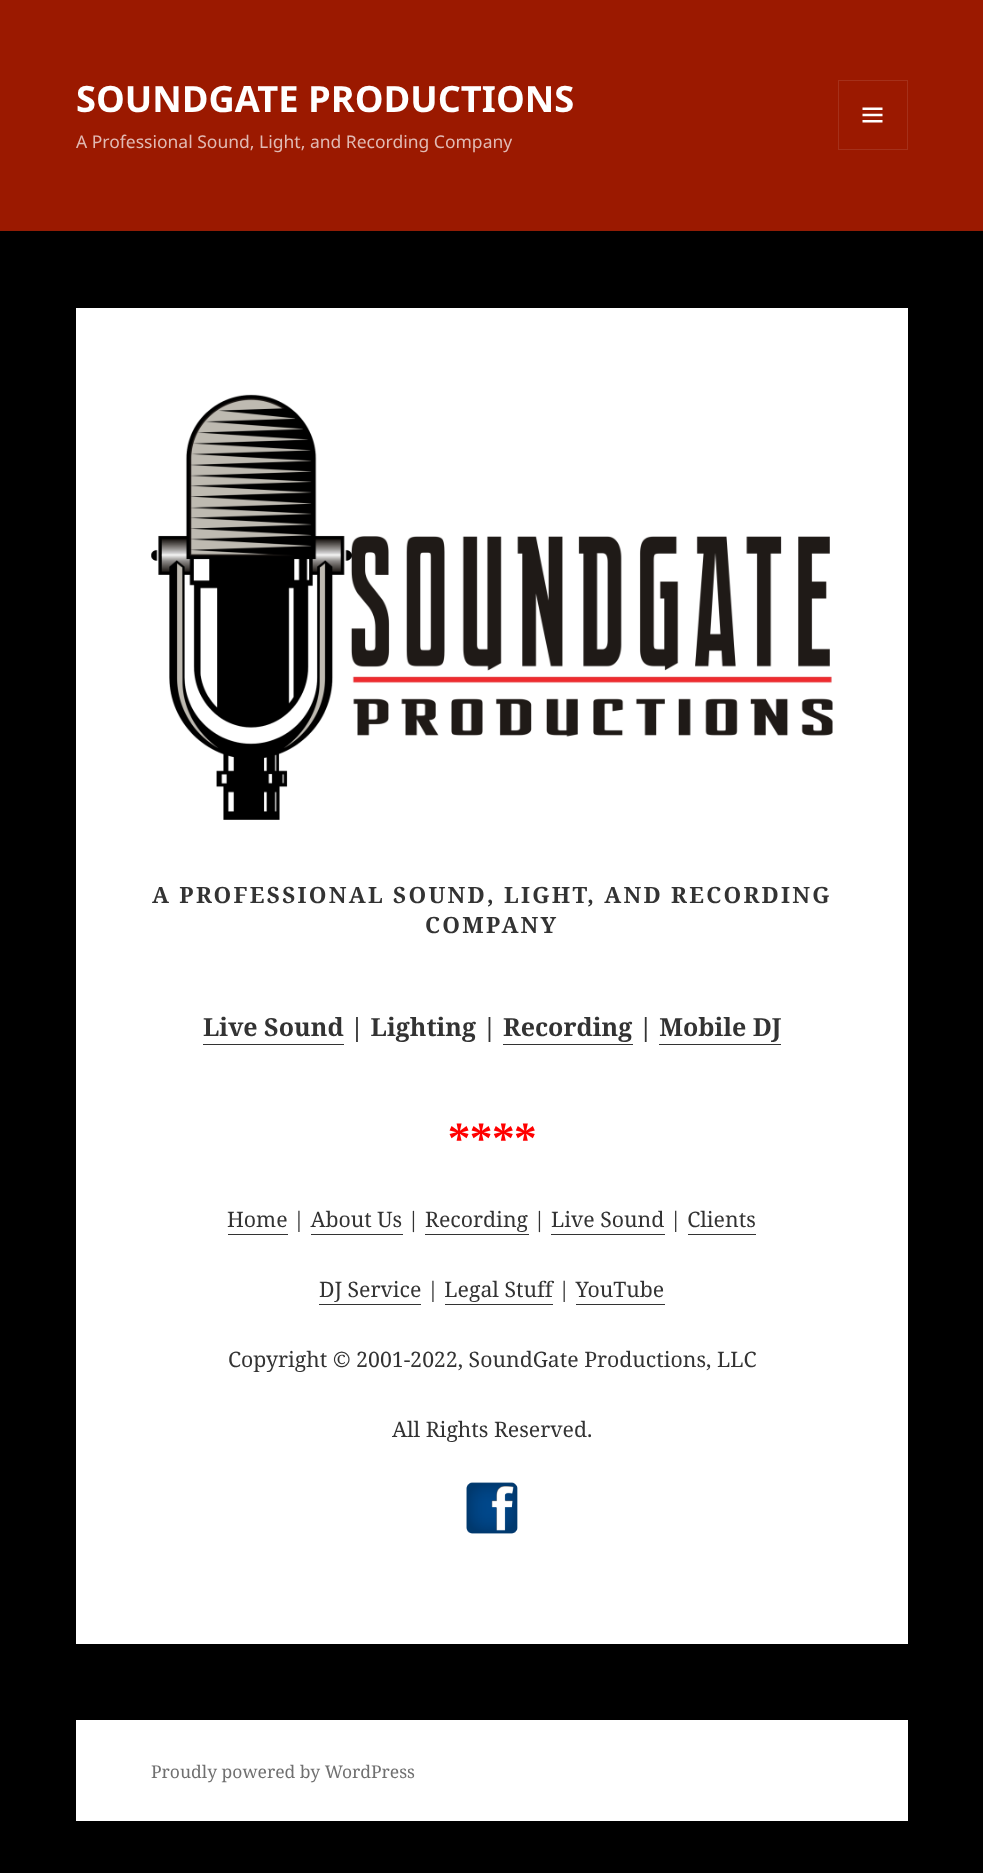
async function draw(canvas) {
	canvas.width = 983;
	canvas.height = 1873;
	const c = canvas.getContext('2d');
	c.miterLimit = 4;
	c.fontKerning = 'normal';
	async function loadImage(src) {
		const img = new Image();
		img.src = src;
		await img.decode();
		return img;
	}

	c.fillStyle = '#000';
	c.fillRect(0, 0, 983, 1873);
	c.fillStyle = '#9b1900';
	c.fillRect(0, 0, 983, 230);
	c.fillStyle = '#911c05';
	c.fillRect(0, 230, 983, 1);
	c.font = 'bold 36.25px Noto Sans';
	c.fillStyle = '#fff';
	c.fillText('SOUNDGATE PRODUCTIONS', 76, 112);
	c.strokeStyle = '#a5301a';
	c.strokeRect(838.5, 80.5, 69, 69);
	c.drawImage(await loadImage('img1.png'), 862, 107, 21, 16);
	c.font = '17.5px Noto Sans';
	c.fillStyle = '#e1bab3';
	c.fillText('A Professional Sound, Light, and Recording Company', 76, 148);
	c.fillStyle = '#fff';
	c.fillRect(76, 308, 832, 1336);
	c.drawImage(await loadImage('img2.png'), 151, 394, 682, 426);
	c.letterSpacing = '2.25px';
	c.font = 'bold 22.5px Noto Serif';
	c.fillStyle = '#333';
	c.fillText('A PROFESSIONAL SOUND, LIGHT, AND RECORDING', 152, 903);
	c.fillText('COMPANY', 425, 933);
	c.letterSpacing = '0px';
	c.font = 'bold 25px Noto Serif';
	c.fillText('Live Sound | Lighting | Recording | Mobile DJ', 203, 1036);
	for (const [x, y, w, h, color] of [
		[203, 1044, 141, 1, '#333'],
		[503, 1044, 130, 1, '#333'],
		[659, 1044, 122, 1, '#333'],
	]) {
		c.fillStyle = color;
		c.fillRect(x, y, w, h);
	}
	c.font = 'bold 44px Noto Serif';
	c.fillStyle = '#f00';
	c.fillText('****', 448, 1157);
	c.font = '21.25px Noto Serif';
	c.fillStyle = '#333';
	c.fillText('Home | About Us | Recording | Live Sound | Clients', 227, 1227);
	for (const [x, y, w, h, color] of [
		[228, 1234, 60, 1, '#333'],
		[311, 1234, 92, 1, '#333'],
		[425, 1234, 104, 1, '#333'],
		[551, 1234, 114, 1, '#333'],
		[688, 1234, 68, 1, '#333'],
	]) {
		c.fillStyle = color;
		c.fillRect(x, y, w, h);
	}
	c.fillText('DJ Service | Legal Stuff | YouTube', 319, 1297);
	for (const [x, y, w, h, color] of [
		[319, 1304, 102, 1, '#333'],
		[445, 1304, 108, 1, '#333'],
		[576, 1304, 89, 1, '#333'],
	]) {
		c.fillStyle = color;
		c.fillRect(x, y, w, h);
	}
	c.fillText('Copyright © 2001-2022, SoundGate Productions, LLC', 228, 1367);
	c.fillText('All Rights Reserved.', 392, 1437);
	c.drawImage(await loadImage('img3.png'), 466, 1482, 52, 52);
	c.fillStyle = '#fff';
	c.fillRect(76, 1720, 832, 101);
	c.font = '17.5px Noto Serif';
	c.fillStyle = '#707070';
	c.fillText('Proudly powered by WordPress', 151, 1778);
}

draw(document.querySelector('canvas'));
